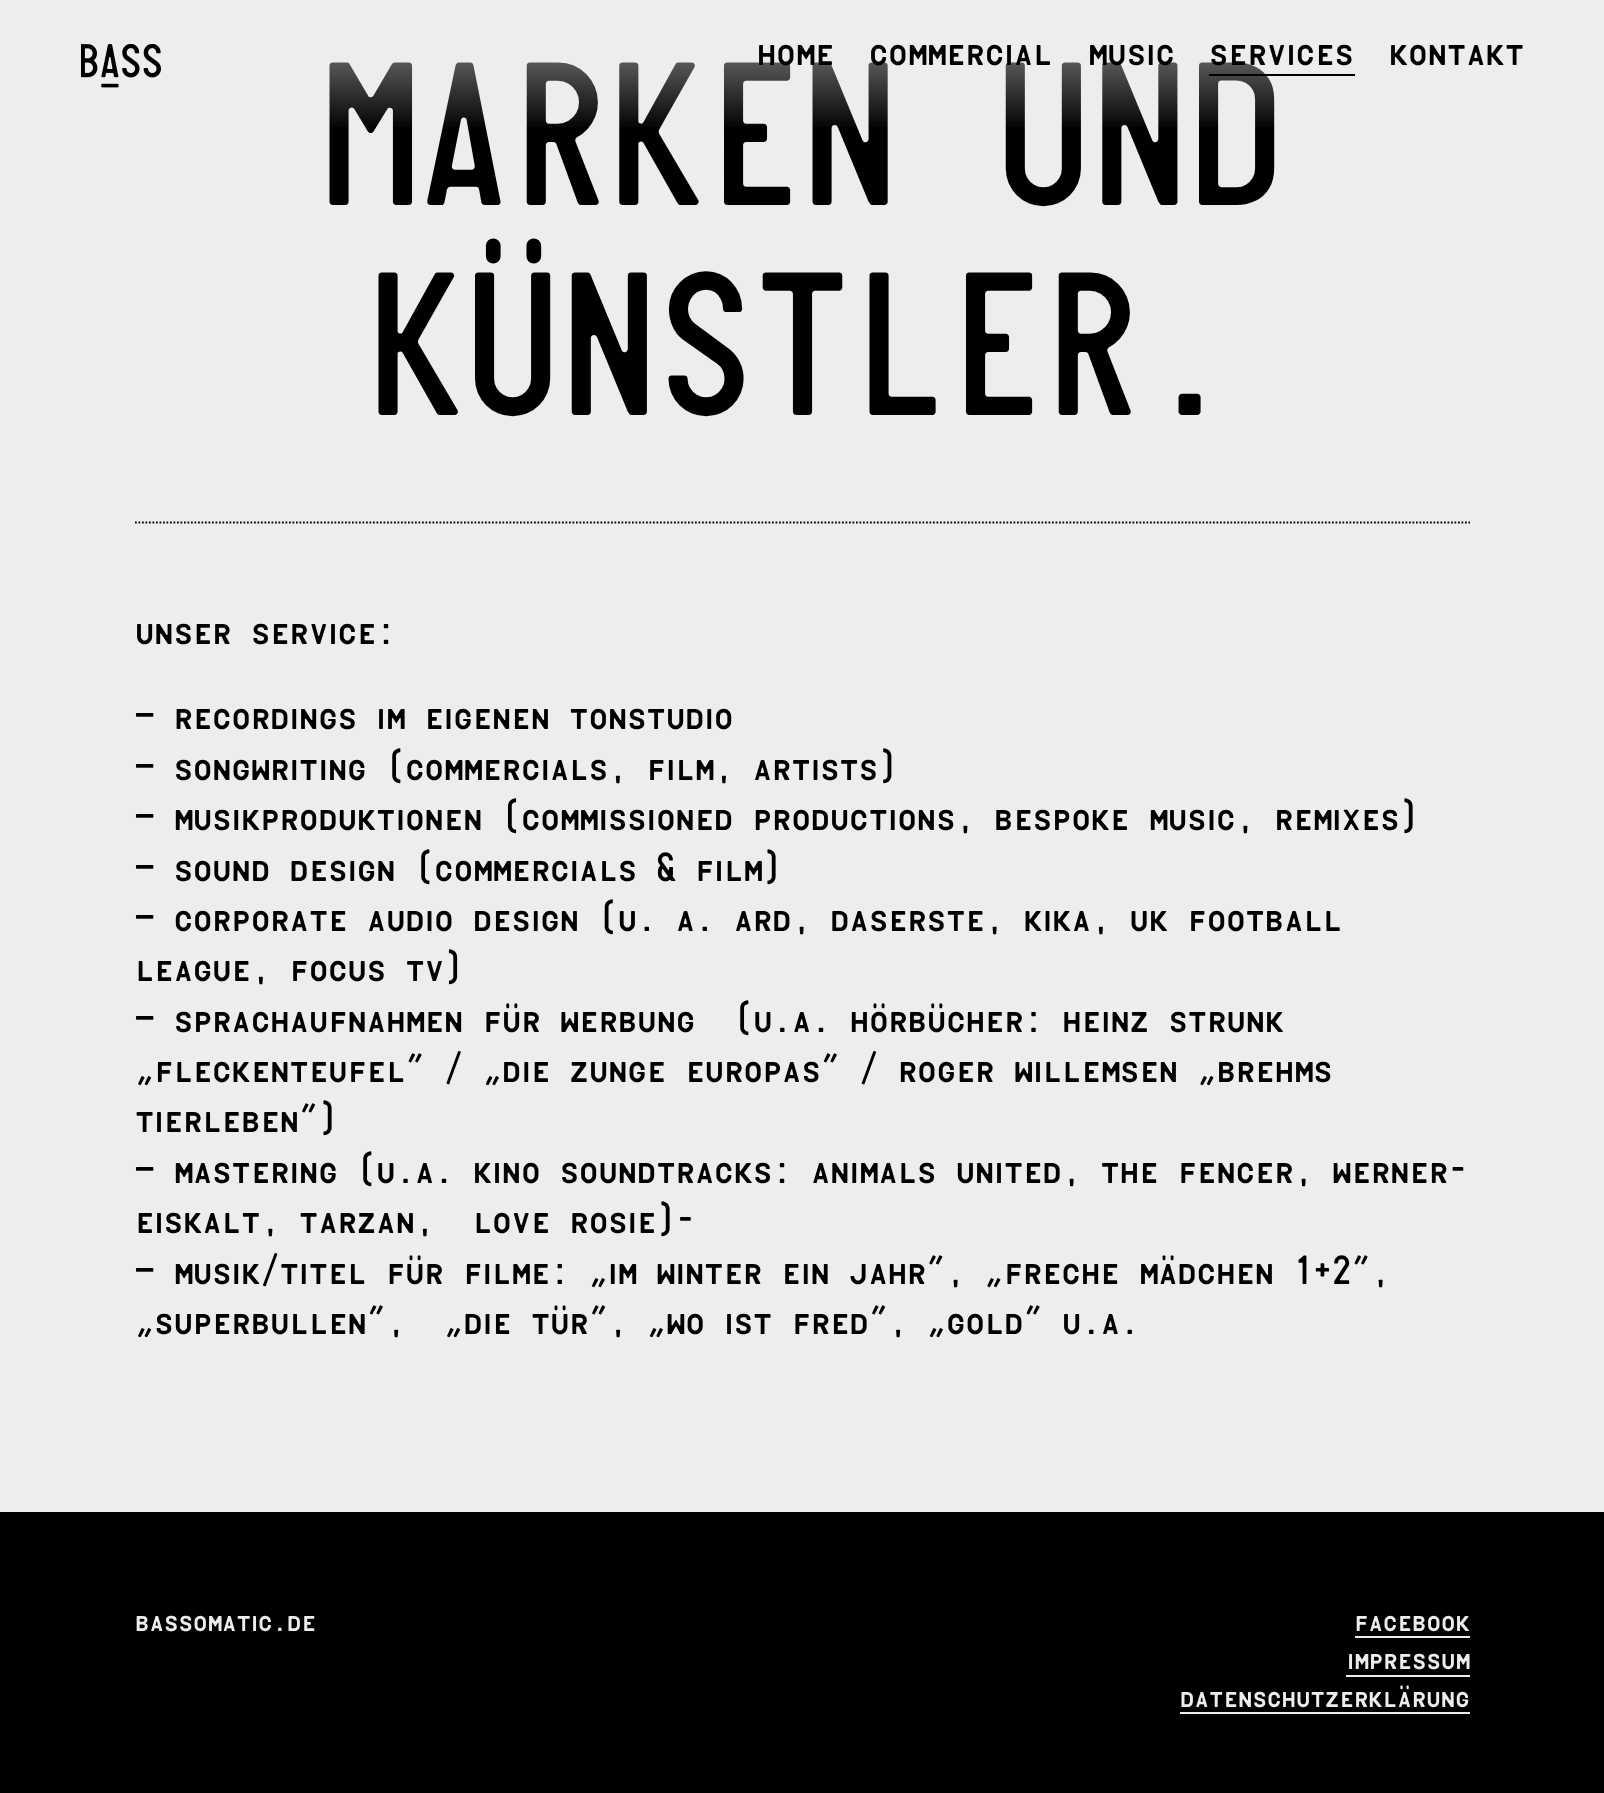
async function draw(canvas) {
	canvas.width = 1604;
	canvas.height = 1793;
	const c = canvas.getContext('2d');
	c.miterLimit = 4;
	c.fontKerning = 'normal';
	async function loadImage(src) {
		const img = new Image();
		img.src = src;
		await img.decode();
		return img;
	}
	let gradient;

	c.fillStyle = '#ededed';
	c.fillRect(0, 0, 1604, 1793);
	c.drawImage(await loadImage('img1.png'), 81, 44, 80, 44);
	c.font = '210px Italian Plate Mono';
	c.fillStyle = '#000';
	c.fillText('MARKEN UND', 319, 205);
	gradient = c.createLinearGradient(802, 0, 802, 131);
	gradient.addColorStop(0, '#edededb3');
	gradient.addColorStop(1, '#ededed00');
	c.fillStyle = gradient;
	c.fillRect(329, 62, 946, 65);
	c.font = '42px Italian Plate Mono';
	c.fillStyle = '#000';
	for (const [text, x, y] of [
		['home', 757, 65],
		['commercial', 869, 65],
		['music', 1088, 65],
		['services', 1209, 65],
	]) {
		c.fillText(text, x, y);
	}
	c.fillRect(1209, 74, 146, 2);
	c.fillText('kontakt', 1389, 65);
	c.beginPath();
	c.moveTo(135, 522.5);
	c.lineTo(1470, 522.5);
	c.strokeStyle = '#000';
	c.lineWidth = 1.8;
	c.setLineDash([1.75, 1.75]);
	c.stroke();
	c.font = '210px Italian Plate Mono';
	c.fillText('KÜNSTLER.', 368, 415);
	c.font = '42px Italian Plate Mono';
	for (const [text, x, y] of [
		['unser service:', 135, 644],
		['— recordings im eigenen tonstudio', 135, 729],
		['— songwriting (commercials, film, artists)', 135, 780],
		['— musikproduktionen (commissioned productions, bespoke music, remixes)', 135, 830],
		['— sound design (commercials & film)', 135, 881],
		['— corporate audio design (u. a. ard, daserste, kika, uk football', 135, 931],
		['league, focus tv)', 135, 981],
		['— sprachaufnahmen für werbung  (u.a. hörbücher: heinz strunk', 135, 1032],
		['„fleckenteufel" / „die zunge europas“ / roger willemsen „brehms', 135, 1082],
		['tierleben")', 135, 1132],
		['— mastering (u.a. kino soundtracks: animals united, the fencer, werner-', 135, 1183],
		['eiskalt, tarzan,  love rosie)-', 135, 1233],
		['— musik/titel für filme: „im winter ein jahr", „freche mädchen 1+2",', 135, 1284],
		['„superbullen",  „die tür", „wo ist fred", „gold" u.a.', 135, 1334],
	]) {
		c.fillText(text, x, y);
	}
	c.fillRect(0, 1512, 1604, 281);
	c.font = '31.5px Italian Plate Mono';
	c.fillStyle = '#ededed';
	c.fillText('bassomatic.de', 135, 1631);
	c.fillText('facebook', 1354, 1631);
	c.fillRect(1355, 1636, 115, 2);
	c.fillText('impressum', 1347, 1669);
	c.fillRect(1346, 1675, 124, 2);
	c.fillText('datenschutzerklärung', 1180, 1707);
	c.fillRect(1180, 1712, 290, 2);
}

draw(document.querySelector('canvas'));
